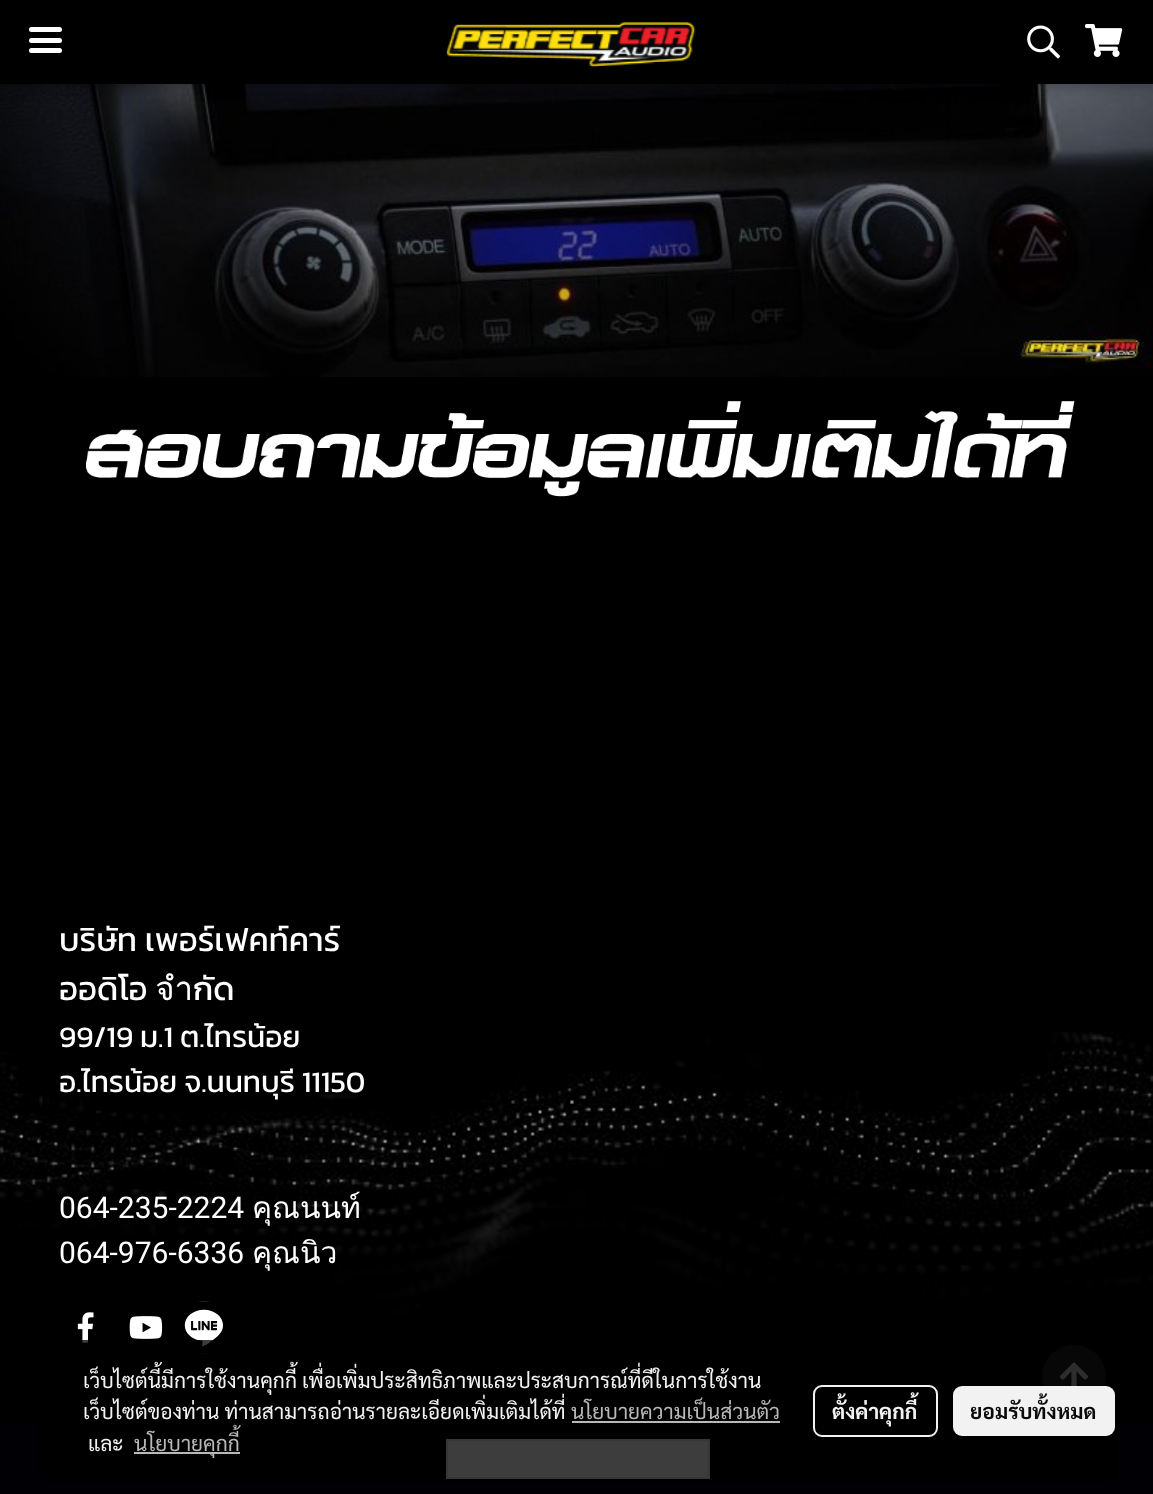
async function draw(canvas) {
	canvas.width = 1153;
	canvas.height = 1494;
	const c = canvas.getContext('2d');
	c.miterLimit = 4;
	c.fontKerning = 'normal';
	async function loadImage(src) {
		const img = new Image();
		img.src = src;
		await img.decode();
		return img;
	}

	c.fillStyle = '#fff';
	c.fillRect(0, 0, 1153, 1494);
	c.drawImage(await loadImage('img4.png'), 0, 84, 1153, 293);
	c.fillStyle = '#0000001f';
	c.filter = 'blur(7.5px)';
	c.beginPath();
	c.rect(0, 3, 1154, 84);
	c.fill();
	c.filter = 'none';
	c.fillStyle = '#00000029';
	c.filter = 'blur(4px)';
	c.beginPath();
	c.rect(0, 3, 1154, 84);
	c.fill();
	c.filter = 'none';
	c.fillStyle = '#000';
	c.fillRect(0, 0, 1153, 84);
	c.fillStyle = '#fff';
	c.beginPath();
	c.roundRect(29, 38, 33, 5, 2.5);
	c.fill();
	c.beginPath();
	c.roundRect(29, 27, 33, 5, 2.5);
	c.fill();
	c.beginPath();
	c.roundRect(29, 48, 33, 5, 2.5);
	c.fill();
	c.drawImage(await loadImage('img1.png'), 446, 22, 250, 46);
	c.drawImage(await loadImage('img2.png'), 1027, 25, 34, 34);
	c.drawImage(await loadImage('img3.png'), 1085, 24, 38, 33);
	c.fillStyle = '#000';
	c.fillRect(0, 377, 1153, 478);
	c.drawImage(await loadImage('img5.png'), 86, 401, 989, 96);
	c.drawImage(await loadImage('img6.png'), 0, 855, 1153, 569);
	c.font = '33px Kanit';
	c.fillStyle = '#fff';
	c.fillText('บริษัท เพอร์เฟคท์คาร์', 59, 951);
	c.fillText('ออดิโอ จำกัด', 59, 1000);
	c.font = '30px Kanit';
	c.fillText('99/19 ม.1 ต.ไทรน้อย', 59, 1047);
	c.fillText('อ.ไทรน้อย จ.นนทบุรี 11150', 59, 1092);
	c.drawImage(await loadImage('img7.png'), 106, 1135, 201, 42);
	c.font = '30px Roboto';
	c.fillText('064-235-2224', 59, 1218);
	c.font = '30px Loma';
	c.fillText('คุณนนท์', 252, 1218);
	c.font = '30px Roboto';
	c.fillText('064-976-6336', 59, 1263);
	c.font = '30px Loma';
	c.fillText('คุณนิว', 252, 1263);
	c.drawImage(await loadImage('img8.png'), 77, 1312, 17, 31);
	c.drawImage(await loadImage('img9.png'), 129, 1316, 34, 23);
	c.drawImage(await loadImage('img10.png'), 184, 1301, 39, 53);
	c.fillStyle = '#010005';
	c.fillRect(0, 1424, 1153, 70);
	c.fillStyle = '#fff';
	c.beginPath();
	c.rect(447, 1440, 262, 38);
	c.fill();
	c.strokeStyle = '#e5e5e5';
	c.lineWidth = 2;
	c.stroke();
	c.fillStyle = '#1e1d1d';
	c.beginPath();
	c.moveTo(1074, 1345);
	c.bezierCurveTo(1056, 1345, 1042, 1359, 1042, 1377);
	c.bezierCurveTo(1042, 1395, 1056, 1409, 1074, 1409);
	c.bezierCurveTo(1092, 1409, 1106, 1395, 1106, 1377);
	c.bezierCurveTo(1106, 1359, 1092, 1345, 1074, 1345);
	c.closePath();
	c.fill();
	c.drawImage(await loadImage('img11.png'), 1059, 1362, 29, 30);
	c.fillStyle = '#000000c2';
	c.beginPath();
	c.roundRect(38, 1340, 1080, 142, 12);
	c.fill();
	c.font = '21px Sarabun';
	c.fillStyle = '#f2f2f2';
	c.fillText('เว็บไซต์นี้มีการใช้งานคุกกี้ เพื่อเพิ่มประสิทธิภาพและประสบการณ์ที่ดีในการใช้งาน', 83, 1388);
	c.fillText('เว็บไซต์ของท่าน ท่านสามารถอ่านรายละเอียดเพิ่มเติมได้ที่', 83, 1419);
	c.fillStyle = '#b8b8b8';
	c.fillText('นโยบายความเป็นส่วนตัว', 571, 1419);
	c.fillRect(572, 1421, 208, 2);
	c.fillStyle = '#f2f2f2';
	c.fillText('และ', 88, 1451);
	c.fillStyle = '#b8b8b9';
	c.fillRect(134, 1452, 106, 2);
	c.fillStyle = '#b8b8b8';
	c.fillText('นโยบายคุกกี้', 134, 1451);
	c.beginPath();
	c.roundRect(814, 1386, 123, 50, 8);
	c.strokeStyle = '#f2f2f2';
	c.stroke();
	c.font = 'bold 21px Sarabun';
	c.fillStyle = '#f2f2f2';
	c.fillText('ตั้งค่าคุกกี้', 832, 1419);
	c.fillStyle = '#fffffff2';
	c.beginPath();
	c.roundRect(953, 1386, 162, 50, 9);
	c.fill();
	c.fillStyle = '#0c0c0c';
	c.fillText('ยอมรับทั้งหมด', 970, 1419);
}

draw(document.querySelector('canvas'));
